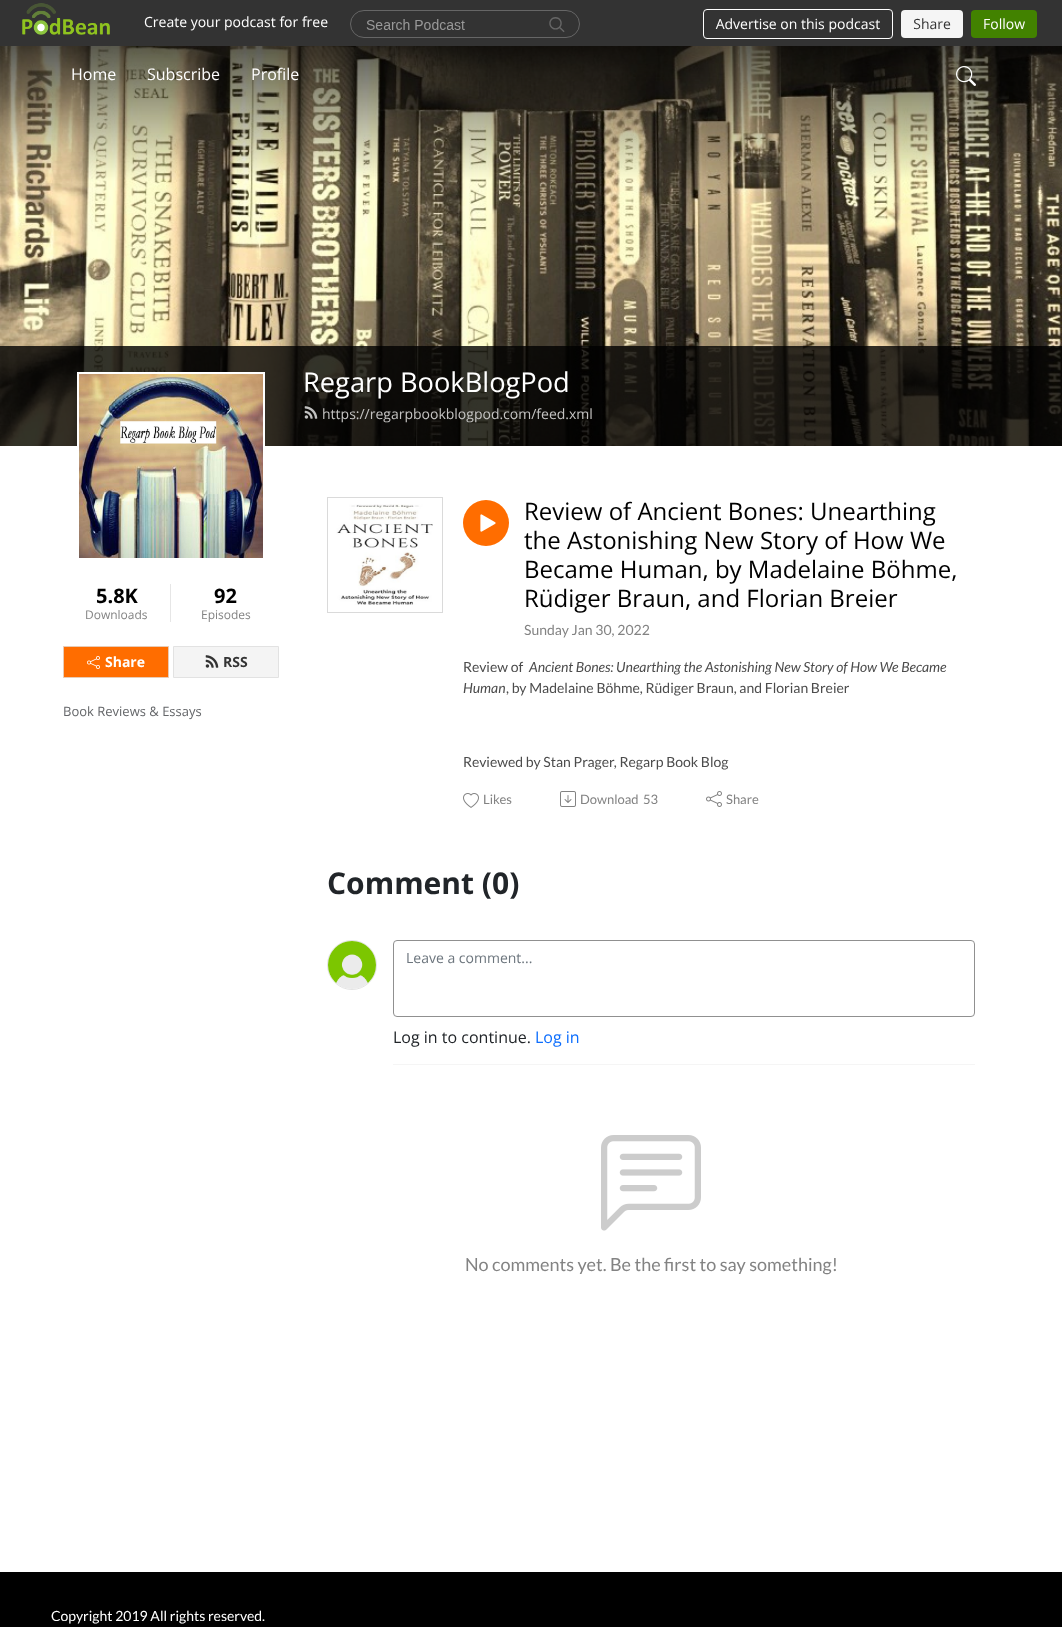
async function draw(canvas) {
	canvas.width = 1062;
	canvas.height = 1627;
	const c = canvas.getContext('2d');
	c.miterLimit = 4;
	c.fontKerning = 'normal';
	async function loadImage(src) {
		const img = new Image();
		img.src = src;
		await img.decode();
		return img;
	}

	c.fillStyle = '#fff';
	c.fillRect(0, 0, 1062, 1627);
	c.fillStyle = '#333';
	c.fillRect(0, 0, 1062, 46);
	c.drawImage(await loadImage('img1.png'), 22, 3, 1015, 36);
	c.drawImage(await loadImage('img3.png'), 0, 46, 1062, 400);
	c.font = '16px Open Sans';
	c.fillStyle = '#fff';
	for (const [text, x, y] of [
		['Home', 71, 80],
		['Subscribe', 147, 80],
		['Profile', 251, 80],
	]) {
		c.fillText(text, x, y);
	}
	c.drawImage(await loadImage('img2.png'), 956, 66, 20, 20);
	c.fillStyle = '#000000cc';
	c.fillRect(0, 346, 1062, 100);
	c.font = '27.25px Open Sans';
	c.fillStyle = '#fff';
	c.fillText('Regarp BookBlogPod', 303, 392);
	c.drawImage(await loadImage('img4.png'), 304, 406, 14, 13);
	c.font = '14px Open Sans';
	c.fillStyle = '#c4c3c2';
	c.fillText('https://regarpbookblogpod.com/feed.xml', 322, 419);
	c.strokeStyle = '#fff';
	c.lineWidth = 2;
	c.strokeRect(78, 373, 186, 186);
	c.drawImage(await loadImage('img5.png'), 79, 374, 184, 184);
	c.font = 'bold 20px Open Sans';
	c.fillStyle = '#000';
	c.fillText('5.8K', 96, 603);
	c.font = '12px Open Sans';
	c.fillStyle = '#838383';
	c.fillText('Downloads', 85, 619);
	c.fillStyle = '#e6e6e6';
	c.fillRect(170, 584, 1, 38);
	c.font = 'bold 20px Open Sans';
	c.fillStyle = '#000';
	c.fillText('92', 214, 603);
	c.font = '12px Open Sans';
	c.fillStyle = '#838383';
	c.fillText('Episodes', 201, 619);
	c.fillStyle = '#ff6d00';
	c.beginPath();
	c.rect(63.5, 646.5, 105, 31);
	c.fill();
	c.strokeStyle = '#e8cbb5';
	c.lineWidth = 1;
	c.stroke();
	c.drawImage(await loadImage('img6.png'), 87, 656, 13, 13);
	c.font = 'bold 14px Open Sans';
	c.fillStyle = '#fff';
	c.fillText('Share', 105, 667);
	c.fillStyle = '#f4f4f4';
	c.beginPath();
	c.rect(173.5, 646.5, 105, 31);
	c.fill();
	c.strokeStyle = '#e2e2e2';
	c.stroke();
	c.drawImage(await loadImage('img7.png'), 205, 655, 14, 13);
	c.fillStyle = '#333';
	c.fillText('RSS', 223, 667);
	c.font = '13px Open Sans';
	c.fillStyle = '#646669';
	c.fillText('Book Reviews & Essays', 63, 716);
	c.strokeStyle = '#dadada';
	c.strokeRect(327.5, 497.5, 115, 115);
	c.drawImage(await loadImage('img8.png'), 336, 504, 97, 101);
	c.fillStyle = '#ff6d00';
	c.beginPath();
	c.arc(486, 523, 23, 0, 2 * Math.PI);
	c.fill();
	c.drawImage(await loadImage('img9.png'), 480, 514, 16, 18);
	c.font = '24px Open Sans';
	c.fillStyle = '#000';
	for (const [text, x, y] of [
		['Review of Ancient Bones: Unearthing', 524, 520],
		['the Astonishing New Story of How We', 524, 549],
		['Became Human, by Madelaine Böhme,', 524, 578],
		['Rüdiger Braun, and Florian Breier', 524, 607],
	]) {
		c.fillText(text, x, y);
	}
	c.font = '14px Lato';
	c.fillStyle = '#838383';
	c.fillText('Sunday Jan 30, 2022', 524, 635);
	c.fillStyle = '#4c4c4c';
	c.fillText('Review of', 463, 672);
	c.font = 'italic 14px Lato';
	c.fillText('Ancient Bones: Unearthing the Astonishing New Story of How We Became', 529, 672);
	c.fillText('Human', 463, 693);
	c.font = '14px Lato';
	c.fillText(', by Madelaine Böhme, Rüdiger Braun, and Florian Breier', 506, 693);
	c.fillText('Reviewed by Stan Prager, Regarp Book Blog', 463, 767);
	c.drawImage(await loadImage('img10.png'), 463, 793, 16, 15);
	c.font = '13px Lato';
	c.fillStyle = '#838383';
	c.fillText('Likes', 483, 804);
	c.drawImage(await loadImage('img11.png'), 560, 791, 16, 16);
	c.fillText('Download', 580, 804);
	c.fillText('53', 643, 804);
	c.drawImage(await loadImage('img12.png'), 706, 791, 16, 16);
	c.fillText('Share', 726, 804);
	c.font = 'bold 30px Open Sans';
	c.fillStyle = '#212529';
	c.fillText('Comment (0)', 327, 894);
	c.beginPath();
	c.arc(352, 965, 24.5, 0, 2 * Math.PI);
	c.strokeStyle = '#e3e3e3';
	c.stroke();
	c.drawImage(await loadImage('img13.png'), 328, 941, 48, 48);
	c.fillStyle = '#f5f5f5';
	c.fillRect(393, 1064, 582, 1);
	c.beginPath();
	c.roundRect(393.5, 940.5, 581, 76, 3.5);
	c.strokeStyle = '#909090';
	c.stroke();
	c.font = '14px Open Sans';
	c.fillStyle = '#6c757d';
	c.fillText('Leave a comment...', 406, 963);
	c.font = '16px Open Sans';
	c.fillStyle = '#212529';
	c.fillText('Log in to continue.', 393, 1043);
	c.fillStyle = '#0d6efd';
	c.fillText('Log in', 535, 1043);
	c.drawImage(await loadImage('img14.png'), 601, 1135, 100, 96);
	c.font = '18px Lato';
	c.fillStyle = '#838383';
	c.fillText('No comments yet. Be the first to say something!', 465, 1271);
	c.fillStyle = '#000';
	c.fillRect(0, 1572, 1062, 55);
	c.font = '14px Lato';
	c.fillStyle = '#fff';
	c.fillText('Copyright 2019 All rights reserved.', 51, 1621);
}

draw(document.querySelector('canvas'));
